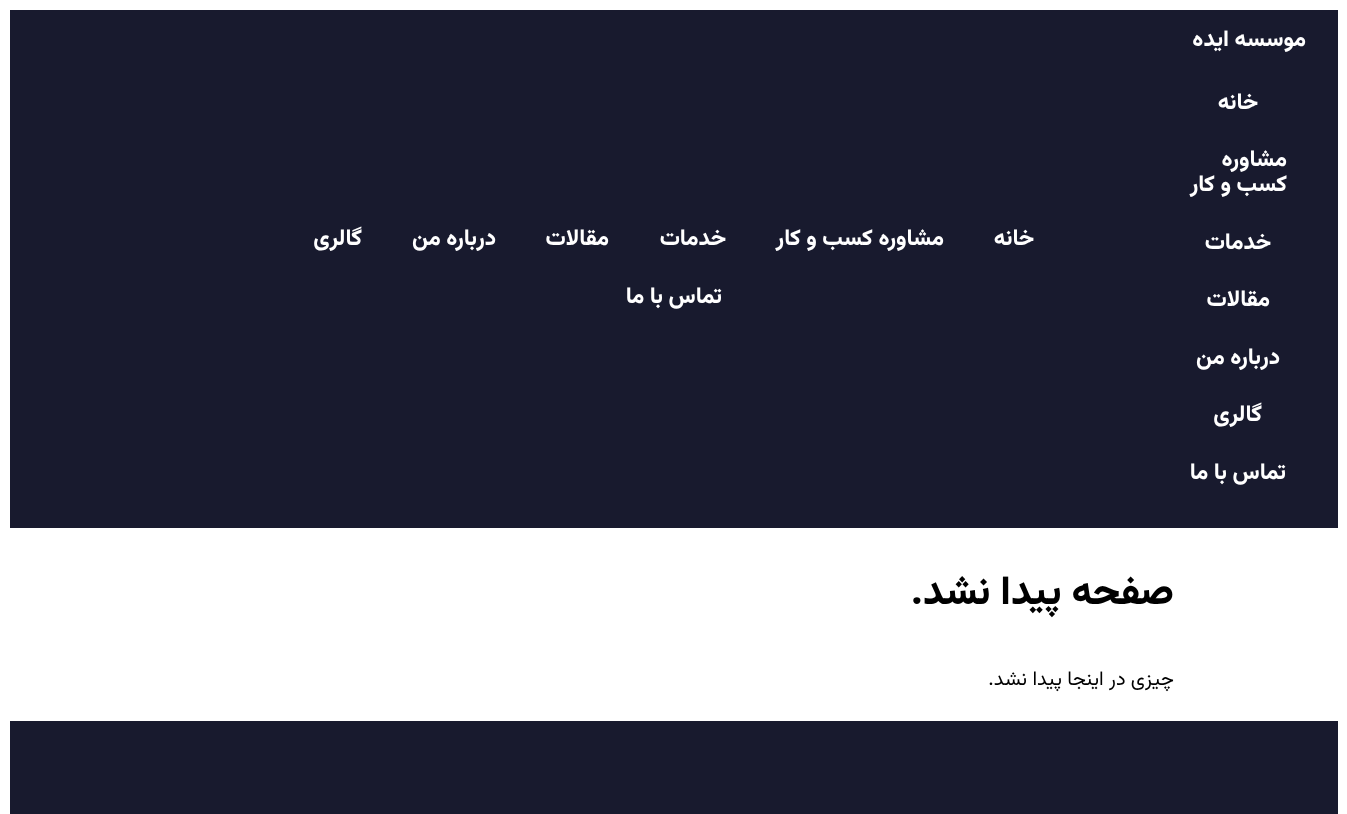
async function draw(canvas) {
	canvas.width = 1347;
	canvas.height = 814;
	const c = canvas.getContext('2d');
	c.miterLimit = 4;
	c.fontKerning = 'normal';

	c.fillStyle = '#fff';
	c.fillRect(0, 0, 1347, 814);
	c.fillStyle = '#181a2e';
	c.fillRect(10, 10, 1328, 518);
	c.direction = 'rtl';
	c.font = '800 22.5px Vazirmatn';
	c.fillStyle = '#fff';
	for (const [text, x, y] of [
		['موسسه ایده', 1306, 46],
		['خانه', 1258, 109],
		['مشاوره', 1287, 166],
		['کسب و کار', 1287, 191],
		['خدمات', 1271, 249],
		['مقالات', 1270, 306],
		['درباره من', 1280, 364],
		['گالری', 1262, 421],
		['تماس با ما', 1286, 479],
		['خانه', 1034, 245],
		['مشاوره کسب و کار', 944, 245],
		['خدمات', 726, 245],
		['مقالات', 609, 245],
		['درباره من', 496, 245],
		['گالری', 362, 245],
		['تماس با ما', 722, 303],
	]) {
		c.fillText(text, x, y);
	}
	c.font = '800 40px Vazirmatn';
	c.fillStyle = '#000';
	c.fillText('صفحه پیدا نشد.', 1174, 604);
	c.font = '20px Vazirmatn';
	c.fillText('چیزی در اینجا پیدا نشد.', 1174, 685);
	c.fillStyle = '#181a2e';
	c.fillRect(10, 721, 1328, 93);
}

draw(document.querySelector('canvas'));
